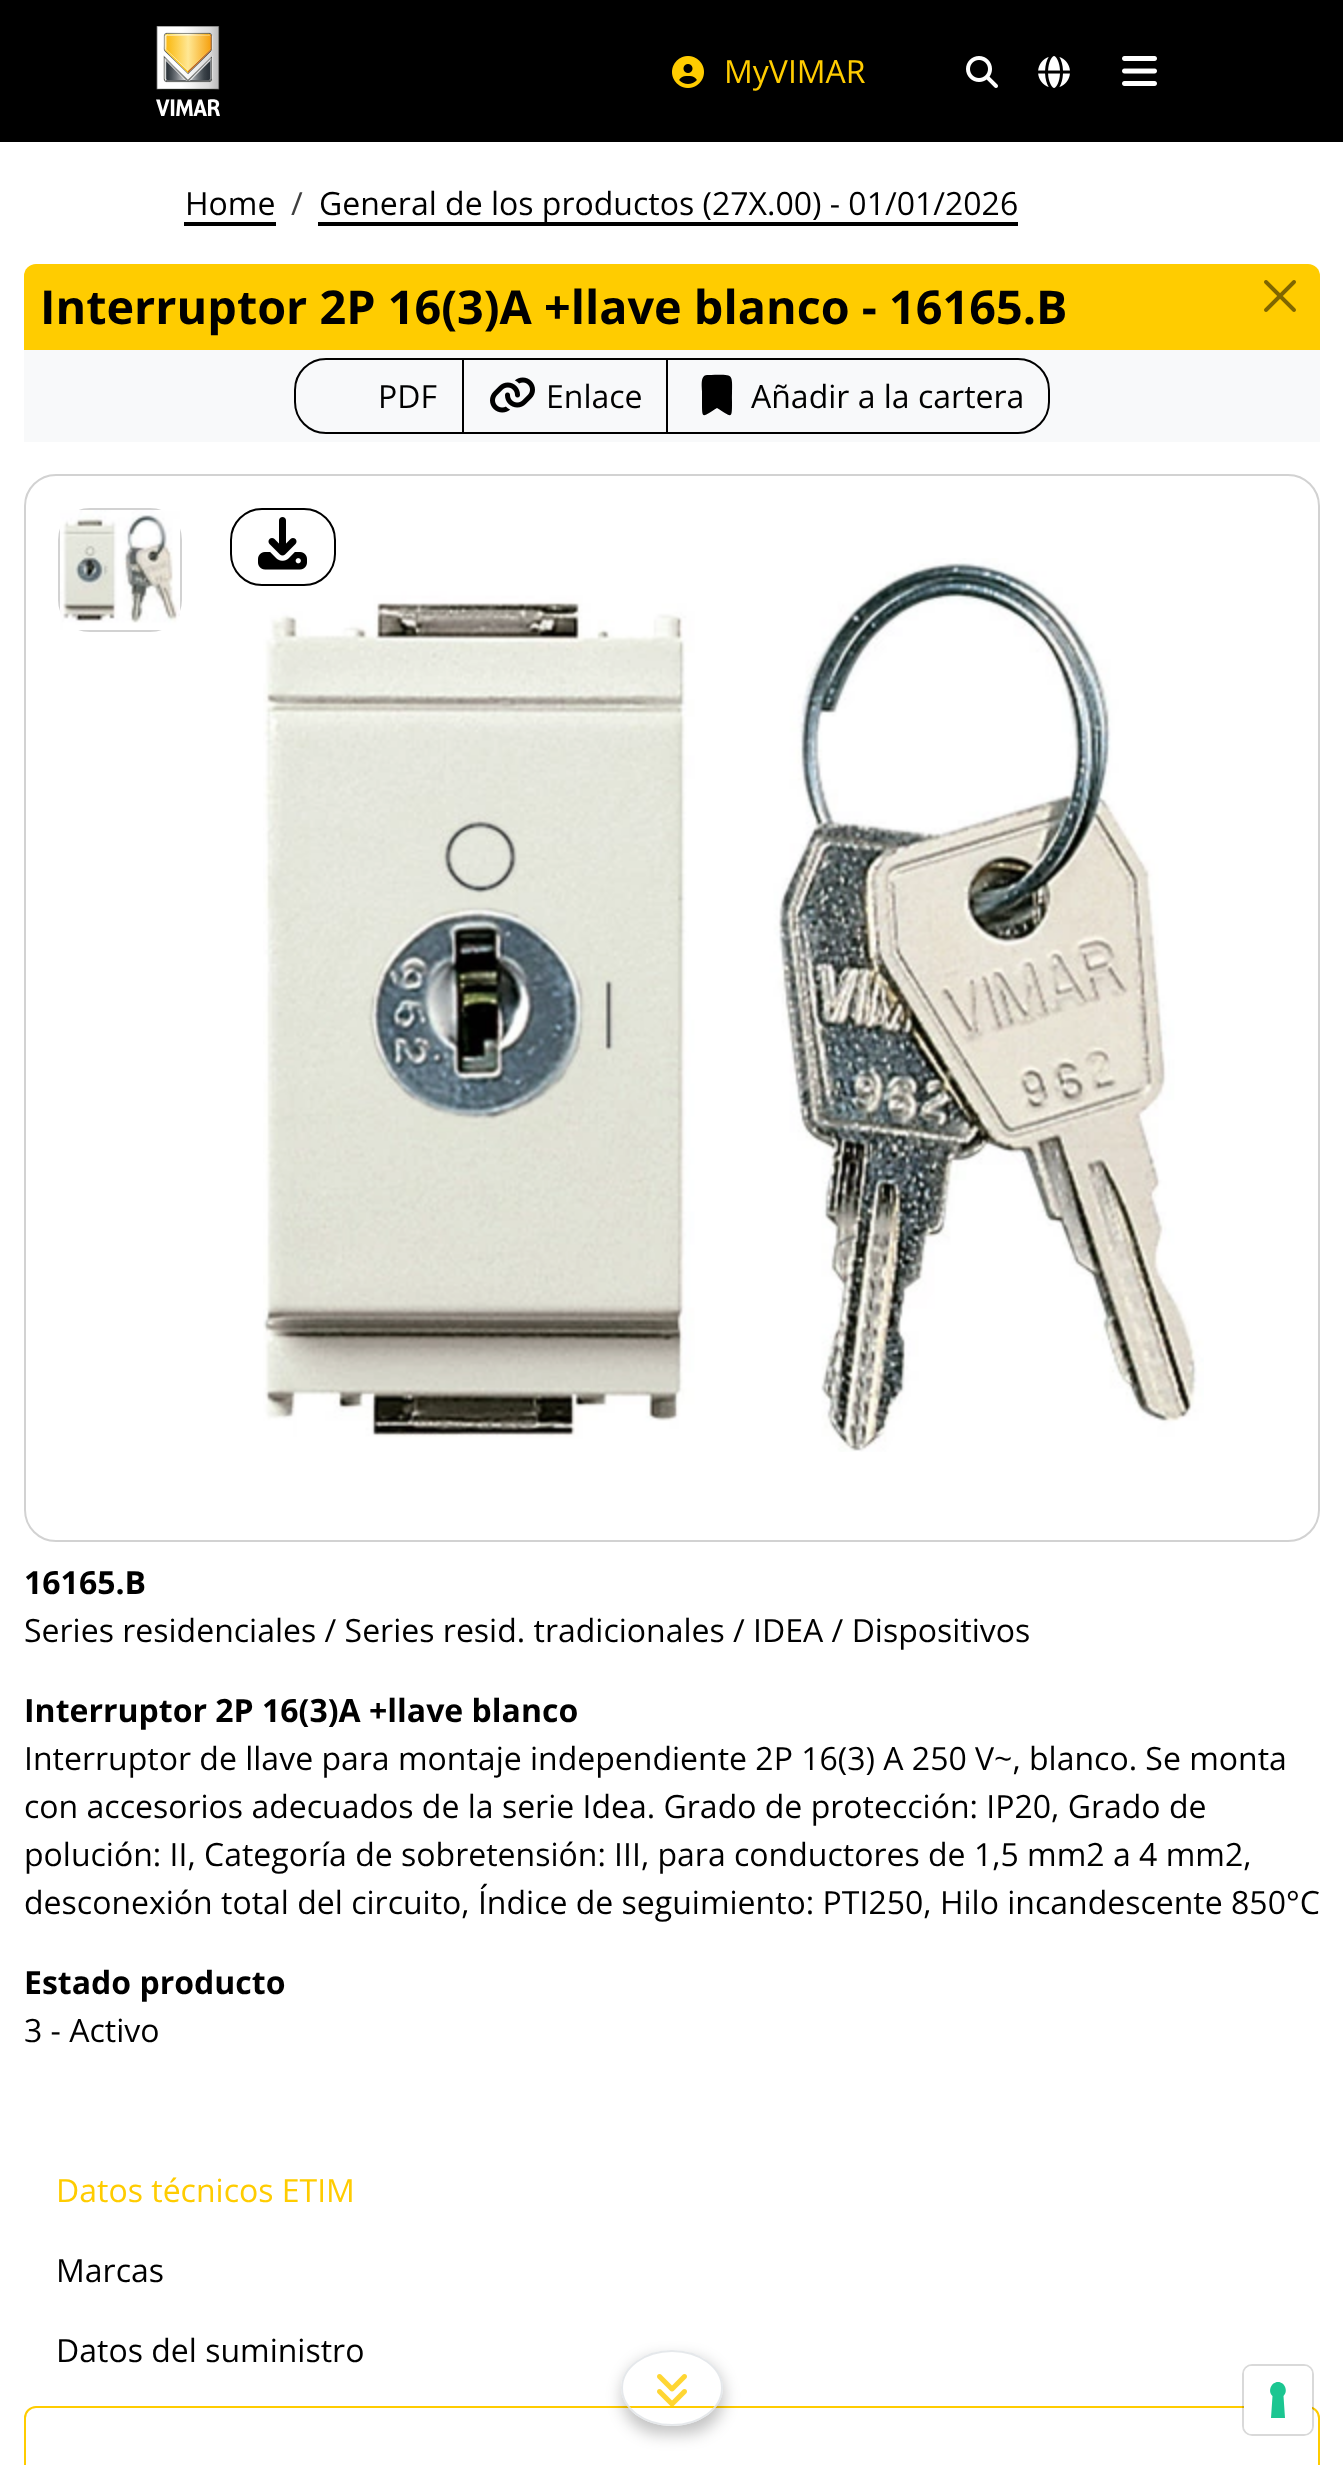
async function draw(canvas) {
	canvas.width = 1343;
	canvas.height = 2465;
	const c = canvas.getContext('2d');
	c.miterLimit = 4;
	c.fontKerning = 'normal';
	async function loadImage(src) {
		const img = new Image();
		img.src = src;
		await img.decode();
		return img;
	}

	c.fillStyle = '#fff';
	c.fillRect(0, 0, 1343, 2465);
	c.fillStyle = '#000';
	c.fillRect(0, 0, 1343, 142);
	c.drawImage(await loadImage('img1.png'), 156, 26, 64, 90);
	c.drawImage(await loadImage('img2.png'), 672, 56, 32, 32);
	c.font = '32px Open Sans';
	c.fillStyle = '#fc0';
	c.fillText('MyVIMAR', 724, 83);
	c.drawImage(await loadImage('img3.png'), 966, 56, 32, 32);
	c.drawImage(await loadImage('img4.png'), 1038, 56, 32, 32);
	c.drawImage(await loadImage('img5.png'), 1122, 56, 35, 30);
	c.fillStyle = '#000';
	c.fillText('Home', 185, 215);
	c.fillRect(184, 222, 92, 4);
	c.fillStyle = '#404040';
	c.fillText('/', 291, 215);
	c.fillStyle = '#000';
	c.fillRect(318, 222, 700, 4);
	c.fillText('General de los productos (27X.00) - 01/01/2026', 319, 215);
	c.fillStyle = '#fc0';
	c.beginPath();
	c.roundRect(24, 264, 1296, 86, [12, 12, 0, 0]);
	c.fill();
	c.font = 'bold 46.75px Open Sans';
	c.fillStyle = '#000';
	c.fillText('Interruptor 2P 16(3)A +llave blanco - 16165.B', 40, 324);
	c.drawImage(await loadImage('img6.png'), 1264, 280, 32, 32);
	c.fillStyle = '#f8f9fa';
	c.fillRect(24, 350, 1296, 92);
	c.beginPath();
	c.roundRect(295, 359, 168, 74, [31, 0, 0, 31]);
	c.strokeStyle = '#000';
	c.lineWidth = 2;
	c.stroke();
	c.font = '32px Open Sans';
	c.fillStyle = '#000';
	c.fillText('PDF', 378, 408);
	c.strokeRect(463, 359, 204, 74);
	c.drawImage(await loadImage('img7.png'), 490, 377, 45, 36);
	c.fillText('Enlace', 546, 408);
	c.beginPath();
	c.roundRect(667, 359, 382, 74, [0, 31, 31, 0]);
	c.stroke();
	c.beginPath();
	c.moveTo(707, 375);
	c.bezierCurveTo(700, 375, 702, 387, 702, 391);
	c.lineTo(702, 402);
	c.bezierCurveTo(702, 420, 702, 417, 717, 408);
	c.bezierCurveTo(732, 417, 732, 420, 732, 402);
	c.bezierCurveTo(732, 371, 736, 375, 707, 375);
	c.closePath();
	c.fill();
	c.fillText('Añadir a la cartera', 751, 408);
	c.beginPath();
	c.roundRect(25, 475, 1294, 1066, 31);
	c.strokeStyle = '#d2d2d2';
	c.stroke();
	c.beginPath();
	c.roundRect(59, 509, 122, 122, 31);
	c.stroke();
	c.drawImage(await loadImage('img8.png'), 60, 510, 120, 120);
	c.drawImage(await loadImage('img10.png'), 263, 558, 941, 894);
	c.beginPath();
	c.roundRect(231, 509, 104, 76, 31);
	c.strokeStyle = '#000';
	c.stroke();
	c.drawImage(await loadImage('img9.png'), 258, 517, 49, 53);
	c.font = 'bold 32px Open Sans';
	c.fillText('16165.B', 24, 1594);
	c.font = '32px Open Sans';
	c.fillText('Series residenciales / Series resid. tradicionales / IDEA / Dispositivos', 24, 1642);
	c.font = 'bold 32px Open Sans';
	c.fillText('Interruptor 2P 16(3)A +llave blanco', 24, 1722);
	c.font = '32px Open Sans';
	for (const [text, x, y] of [
		['Interruptor de llave para montaje independiente 2P 16(3) A 250 V~, blanco. Se monta', 24, 1770],
		['con accesorios adecuados de la serie Idea. Grado de protección: IP20, Grado de', 24, 1818],
		['polución: II, Categoría de sobretensión: III, para conductores de 1,5 mm2 a 4 mm2,', 24, 1866],
		['desconexión total del circuito, Índice de seguimiento: PTI250, Hilo incandescente 850°C', 24, 1914],
	]) {
		c.fillText(text, x, y);
	}
	c.font = 'bold 32px Open Sans';
	c.fillText('Estado producto', 24, 1994);
	c.font = '32px Open Sans';
	c.fillText('3 - Activo', 24, 2042);
	c.fillStyle = '#fc0';
	c.fillText('Datos técnicos ETIM', 56, 2202);
	c.fillStyle = '#000';
	c.fillText('Marcas', 56, 2282);
	c.fillText('Datos del suministro', 56, 2362);
	c.beginPath();
	c.roundRect(25, 2407, 1294, 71, 11);
	c.strokeStyle = '#fc0';
	c.stroke();
	c.save();
	c.beginPath();
	c.moveTo(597, 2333);
	c.lineTo(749, 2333);
	c.lineTo(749, 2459);
	c.lineTo(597, 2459);
	c.closePath();
	c.moveTo(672, 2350);
	c.bezierCurveTo(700, 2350, 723, 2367, 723, 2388);
	c.bezierCurveTo(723, 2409, 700, 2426, 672, 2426);
	c.bezierCurveTo(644, 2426, 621, 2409, 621, 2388);
	c.bezierCurveTo(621, 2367, 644, 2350, 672, 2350);
	c.closePath();
	c.clip('evenodd');
	c.fillStyle = '#0000003d';
	c.filter = 'blur(8px)';
	c.beginPath();
	c.roundRect(622, 2358, 102, 76, 38);
	c.fill();
	c.filter = 'none';
	c.restore();
	c.beginPath();
	c.moveTo(672, 2351);
	c.bezierCurveTo(699.5, 2351, 722, 2367.5, 722, 2388);
	c.bezierCurveTo(722, 2408.5, 699.5, 2425, 672, 2425);
	c.bezierCurveTo(644.5, 2425, 622, 2408.5, 622, 2388);
	c.bezierCurveTo(622, 2367.5, 644.5, 2351, 672, 2351);
	c.closePath();
	c.strokeStyle = '#dee2e6cc';
	c.stroke();
	c.drawImage(await loadImage('img11.png'), 657, 2374, 30, 32);
	c.beginPath();
	c.roundRect(1243, 2365, 70, 70, 9);
	c.strokeStyle = '#00000026';
	c.stroke();
	c.fillStyle = '#fff';
	c.beginPath();
	c.roundRect(1244, 2366, 68, 68, 8);
	c.fill();
	c.fillStyle = '#1cc691';
	c.beginPath();
	c.moveTo(1278, 2382);
	c.bezierCurveTo(1285, 2382, 1288.5, 2391.5, 1283.5, 2396);
	c.lineTo(1285, 2418);
	c.lineTo(1271, 2418);
	c.lineTo(1272.5, 2396);
	c.bezierCurveTo(1267.5, 2391.5, 1271, 2382, 1278, 2382);
	c.closePath();
	c.fill('evenodd');
}

draw(document.querySelector('canvas'));
